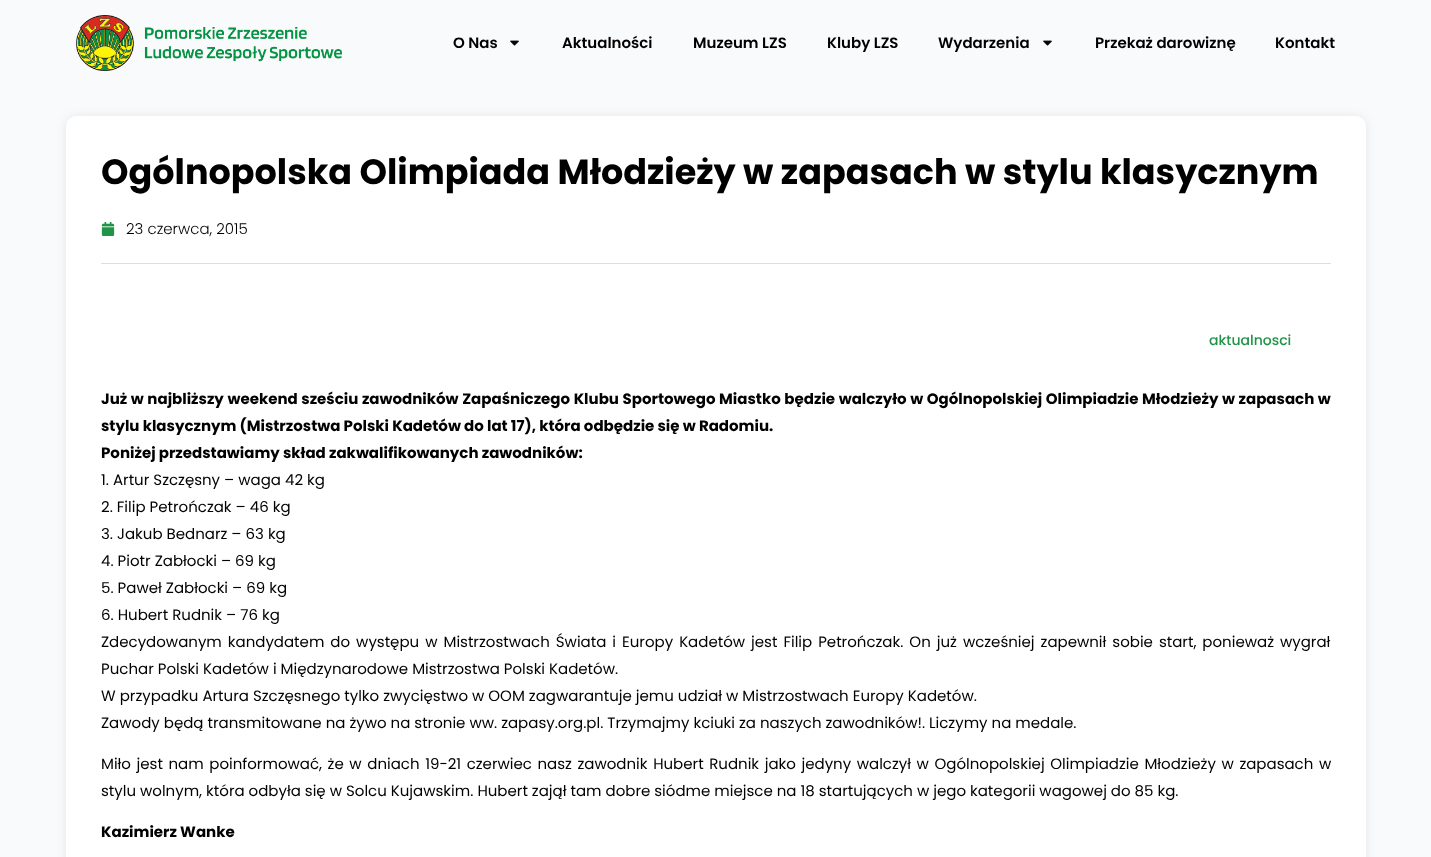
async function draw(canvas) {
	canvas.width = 1431;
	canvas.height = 857;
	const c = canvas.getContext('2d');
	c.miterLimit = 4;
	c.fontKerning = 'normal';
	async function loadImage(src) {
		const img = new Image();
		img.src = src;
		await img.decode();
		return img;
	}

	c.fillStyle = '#f9fafb';
	c.fillRect(0, 0, 1431, 857);
	c.drawImage(await loadImage('img1.png'), 76, 15, 266, 56);
	c.font = '600 15px Poppins';
	c.fillStyle = '#000';
	c.fillText('O Nas', 453, 48);
	c.drawImage(await loadImage('img2.png'), 510, 40, 9, 6);
	for (const [text, x, y] of [
		['Aktualności', 562, 48],
		['Muzeum LZS', 693, 48],
		['Kluby LZS', 827, 48],
		['Wydarzenia', 938, 48],
	]) {
		c.fillText(text, x, y);
	}
	c.drawImage(await loadImage('img2.png'), 1043, 40, 9, 6);
	c.fillText('Przekaż darowiznę', 1095, 48);
	c.fillText('Kontakt', 1275, 48);
	c.fillStyle = '#00000014';
	c.filter = 'blur(5px)';
	c.beginPath();
	c.roundRect(66, 116, 1300, 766, 10);
	c.fill();
	c.filter = 'none';
	c.fillStyle = '#fff';
	c.beginPath();
	c.roundRect(66, 116, 1300, 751, 10);
	c.fill();
	c.font = 'bold 35px Poppins';
	c.fillStyle = '#000';
	c.fillText('Ogólnopolska Olimpiada Młodzieży w zapasach w stylu klasycznym', 101, 184);
	c.drawImage(await loadImage('img3.png'), 101, 222, 14, 14);
	c.font = '300 15px Poppins';
	c.fillText('23 czerwca, 2015', 126, 234);
	c.fillStyle = '#dedede';
	c.fillRect(101, 263, 1230, 1);
	c.font = '500 14px Poppins';
	c.fillStyle = '#1f9347';
	c.fillText('aktualnosci', 1209, 345);
	c.wordSpacing = '0.4px';
	c.font = 'bold 15px Poppins';
	c.fillStyle = '#000';
	c.fillText('Już w najbliższy weekend sześciu zawodników Zapaśniczego Klubu Sportowego Miastko będzie walczyło w Ogólnopolskiej Olimpiadzie Młodzieży w zapasach w', 101, 404);
	c.wordSpacing = '0px';
	c.fillText('stylu klasycznym (Mistrzostwa Polski Kadetów do lat 17), która odbędzie się w Radomiu.', 101, 431);
	c.fillText('Poniżej przedstawiamy skład zakwalifikowanych zawodników:', 101, 458);
	c.font = '15px Poppins';
	for (const [text, x, y] of [
		['1. Artur Szczęsny – waga 42 kg', 101, 485],
		['2. Filip Petrończak – 46 kg', 101, 512],
		['3. Jakub Bednarz – 63 kg', 101, 539],
		['4. Piotr Zabłocki – 69 kg', 101, 566],
		['5. Paweł Zabłocki – 69 kg', 101, 593],
		['6. Hubert Rudnik – 76 kg', 101, 620],
	]) {
		c.fillText(text, x, y);
	}
	c.wordSpacing = '2px';
	c.fillText('Zdecydowanym kandydatem do występu w Mistrzostwach Świata i Europy Kadetów jest Filip Petrończak. On już wcześniej zapewnił sobie start, ponieważ wygrał', 101, 647);
	c.wordSpacing = '0px';
	for (const [text, x, y] of [
		['Puchar Polski Kadetów i Międzynarodowe Mistrzostwa Polski Kadetów.', 101, 674],
		['W przypadku Artura Szczęsnego tylko zwycięstwo w OOM zagwarantuje jemu udział w Mistrzostwach Europy Kadetów.', 101, 701],
		['Zawody będą transmitowane na żywo na stronie ww. zapasy.org.pl. Trzymajmy kciuki za naszych zawodników!. Liczymy na medale.', 101, 728],
	]) {
		c.fillText(text, x, y);
	}
	c.wordSpacing = '1.6px';
	c.fillText('Miło jest nam poinformować, że w dniach 19-21 czerwiec nasz zawodnik Hubert Rudnik jako jedyny walczył w Ogólnopolskiej Olimpiadzie Młodzieży w zapasach w', 101, 769);
	c.wordSpacing = '0px';
	c.fillText('stylu wolnym, która odbyła się w Solcu Kujawskim. Hubert zajął tam dobre siódme miejsce na 18 startujących w jego kategorii wagowej do 85 kg.', 101, 796);
	c.font = 'bold 15px Poppins';
	c.fillText('Kazimierz Wanke', 101, 837);
}

draw(document.querySelector('canvas'));
